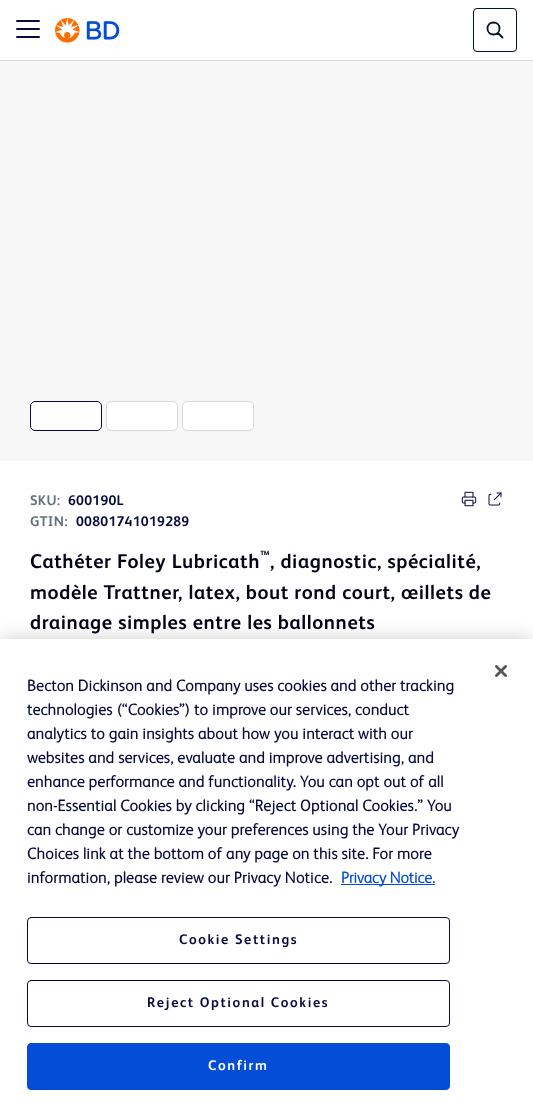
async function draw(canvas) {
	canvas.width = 533;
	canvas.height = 1106;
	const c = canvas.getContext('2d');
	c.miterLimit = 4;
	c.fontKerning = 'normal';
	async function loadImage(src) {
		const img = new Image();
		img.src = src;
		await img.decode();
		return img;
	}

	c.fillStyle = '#fff';
	c.fillRect(0, 0, 533, 1106);
	c.fillStyle = '#d8d8d7';
	c.fillRect(0, 60, 533, 1);
	c.fillStyle = '#060a3d';
	c.beginPath();
	c.roundRect(16, 36, 24, 2, 1);
	c.fill();
	c.beginPath();
	c.roundRect(16, 28, 24, 2, 1);
	c.fill();
	c.beginPath();
	c.roundRect(16, 20, 24, 2, 1);
	c.fill();
	c.drawImage(await loadImage('img1.png'), 55, 18, 65, 25);
	c.fillStyle = '#efefef';
	c.fillRect(473, 8, 44, 44);
	c.fillStyle = '#fff';
	c.beginPath();
	c.roundRect(473.5, 8.5, 43, 43, 3.5);
	c.fill();
	c.strokeStyle = '#021423';
	c.stroke();
	c.beginPath();
	c.moveTo(499.5, 28.5);
	c.bezierCurveTo(499.5, 36.5, 487.5, 36.5, 487.5, 28.5);
	c.bezierCurveTo(487.5, 20.5, 499.5, 20.5, 499.5, 28.5);
	c.closePath();
	c.moveTo(502.5, 37.5);
	c.lineTo(498, 33);
	c.lineWidth = 1.8;
	c.lineCap = 'round';
	c.lineJoin = 'round';
	c.stroke();
	c.fillStyle = '#f8f7f7';
	c.fillRect(0, 61, 533, 400);
	c.fillStyle = '#fff';
	c.beginPath();
	c.roundRect(30.5, 401.5, 71, 29, 4.5);
	c.fill();
	c.strokeStyle = '#060a3d';
	c.lineWidth = 1;
	c.lineJoin = 'miter';
	c.stroke();
	c.beginPath();
	c.roundRect(106.5, 401.5, 71, 29, 4.5);
	c.fill();
	c.strokeStyle = '#d8d8d7';
	c.stroke();
	c.beginPath();
	c.roundRect(182.5, 401.5, 71, 29, 4.5);
	c.fill();
	c.stroke();
	c.letterSpacing = '0.25px';
	c.font = 'bold 14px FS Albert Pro';
	c.fillStyle = '#657278';
	c.fillText('SKU:', 30, 505);
	c.fillStyle = '#060a3d';
	c.fillText('600190L', 68, 505);
	c.fillStyle = '#657278';
	c.fillText('GTIN:', 30, 526);
	c.fillStyle = '#060a3d';
	c.fillText('00801741019289', 76, 526);
	c.drawImage(await loadImage('img2.png'), 461, 491, 16, 16);
	c.drawImage(await loadImage('img3.png'), 488, 492, 14, 14);
	c.letterSpacing = '0.58px';
	c.font = 'bold 15px FS Albert Pro';
	c.fillStyle = '#030418';
	c.fillText('™', 260, 561);
	c.font = 'bold 20px FS Albert Pro';
	for (const [text, x, y] of [
		['Cathéter Foley Lubricath', 30, 568],
		[', diagnostic, spécialité,', 270, 568],
		['modèle Trattner, latex, bout rond court, œillets de', 30, 599],
		['drainage simples entre les ballonnets', 30, 629],
	]) {
		c.fillText(text, x, y);
	}
	c.fillStyle = '#00000033';
	c.filter = 'blur(9px)';
	c.beginPath();
	c.rect(0, 639, 533, 467);
	c.fill();
	c.filter = 'none';
	c.fillStyle = '#fff';
	c.fillRect(0, 639, 533, 467);
	c.drawImage(await loadImage('img4.png'), 495, 665, 12, 12);
	c.letterSpacing = '0.3px';
	c.font = 'bold 16px "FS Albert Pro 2"';
	c.fillStyle = '#060a3d';
	for (const [text, x, y] of [
		['Becton Dickinson and Company uses cookies and other tracking', 27, 691],
		['technologies (“Cookies”) to improve our services, conduct', 27, 715],
		['analytics to gain insights about how you interact with our', 27, 739],
		['websites and services, evaluate and improve advertising, and', 27, 763],
		['enhance performance and functionality. You can opt out of all', 27, 787],
		['non-Essential Cookies by clicking “Reject Optional Cookies.” You', 27, 811],
		['can change or customize your preferences using the Your Privacy', 27, 835],
		['Choices link at the bottom of any page on this site. For more', 27, 859],
		['information, please review our Privacy Notice.', 27, 883],
	]) {
		c.fillText(text, x, y);
	}
	c.fillStyle = '#044ed7';
	c.fillRect(341, 884, 94, 1);
	c.letterSpacing = '0px';
	c.fillText('Privacy Notice.', 341, 883);
	c.beginPath();
	c.roundRect(27.5, 917.5, 422, 46, 3.5);
	c.strokeStyle = '#060a3d';
	c.stroke();
	c.letterSpacing = '1.6px';
	c.font = 'bold 14px FS Albert Pro';
	c.fillStyle = '#060a3d';
	c.fillText('Cookie Settings', 179, 944);
	c.beginPath();
	c.roundRect(27.5, 980.5, 422, 46, 3.5);
	c.stroke();
	c.fillText('Reject Optional Cookies', 147, 1007);
	c.fillStyle = '#044ed7';
	c.beginPath();
	c.roundRect(27.5, 1043.5, 422, 46, 3.5);
	c.fill();
	c.strokeStyle = '#044ed7';
	c.stroke();
	c.fillStyle = '#fff';
	c.fillText('Confirm', 208, 1070);
}

draw(document.querySelector('canvas'));
